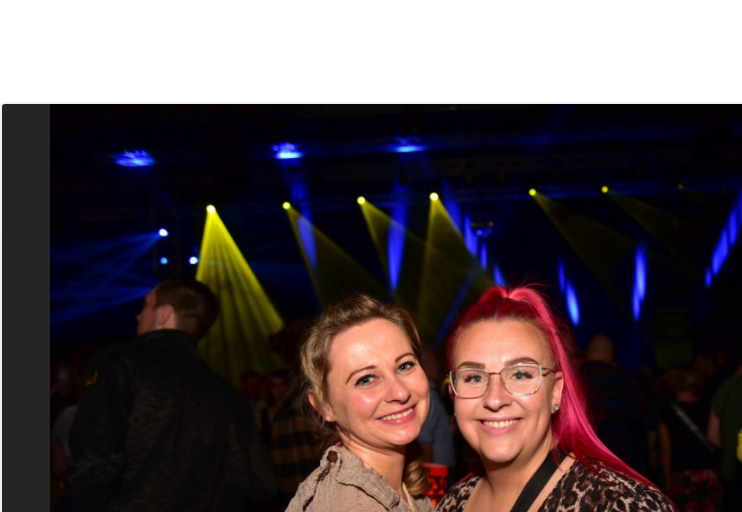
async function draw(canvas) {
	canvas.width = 742;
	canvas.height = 512;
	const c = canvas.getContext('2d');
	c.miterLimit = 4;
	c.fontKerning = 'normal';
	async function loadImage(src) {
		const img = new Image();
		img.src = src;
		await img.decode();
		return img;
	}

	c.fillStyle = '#fff';
	c.fillRect(0, 0, 742, 512);
	c.fillStyle = '#242525';
	c.beginPath();
	c.roundRect(1, 103, 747, 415, 4);
	c.fill();
	c.strokeStyle = '#f0f1f2';
	c.lineWidth = 2;
	c.stroke();
	c.drawImage(await loadImage('img1.png'), 50, 104, 692, 408);
}

draw(document.querySelector('canvas'));
